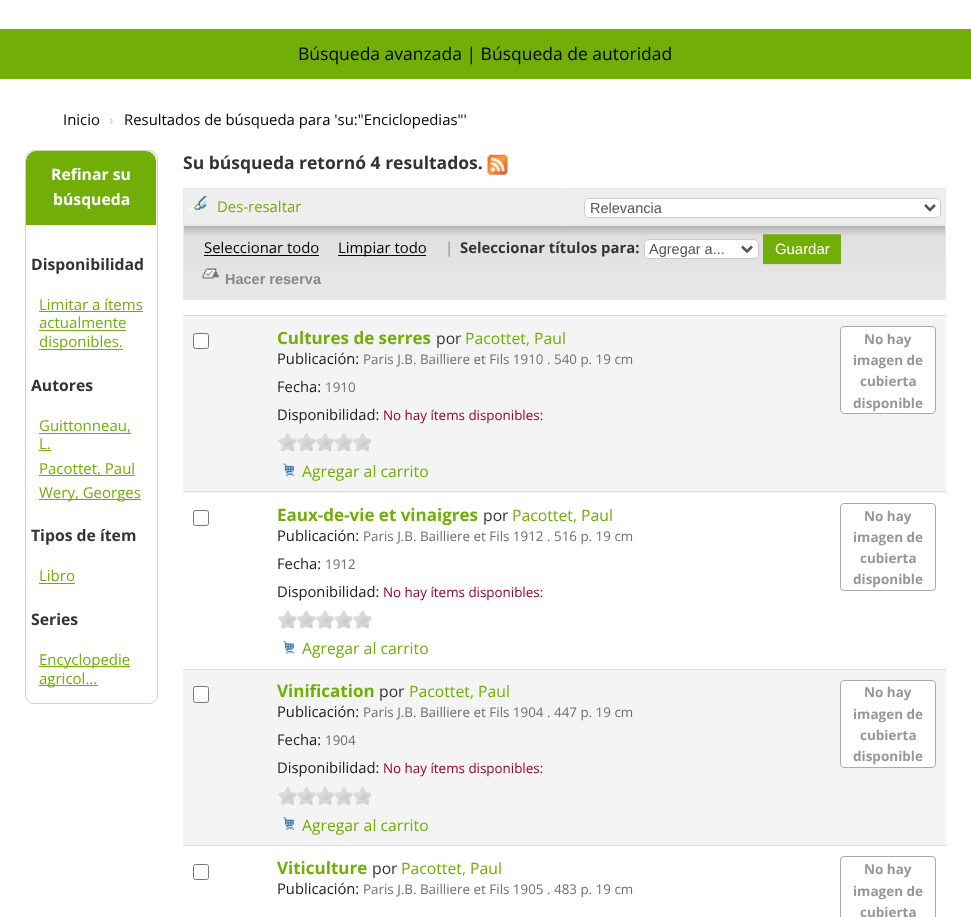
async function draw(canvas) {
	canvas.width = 971;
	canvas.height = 917;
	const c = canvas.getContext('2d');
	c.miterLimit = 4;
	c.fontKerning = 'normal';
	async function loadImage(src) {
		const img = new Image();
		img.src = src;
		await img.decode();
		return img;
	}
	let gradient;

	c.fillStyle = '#fff';
	c.fillRect(0, 0, 971, 917);
	c.fillStyle = '#71ae08';
	c.fillRect(0, 29, 971, 50);
	c.font = '17.5px Open Sans';
	c.fillStyle = '#000';
	c.fillText('Búsqueda avanzada | Búsqueda de autoridad', 298, 60);
	c.font = '14.9px Open Sans';
	c.fillText('Inicio', 63, 125);
	c.fillStyle = '#ccc';
	c.fillText('›', 109, 125);
	c.fillStyle = '#000';
	c.fillText('Resultados de búsqueda para \'su:"Enciclopedias"\'', 124, 125);
	c.beginPath();
	c.roundRect(25.5, 150.5, 132, 553, 8.5);
	c.strokeStyle = '#d2d2cf';
	c.stroke();
	c.fillStyle = '#71ae08';
	c.beginPath();
	c.roundRect(26, 151, 130, 74, [10, 10, 0, 0]);
	c.fill();
	c.font = 'bold 15.75px Open Sans';
	c.fillStyle = '#fff';
	c.fillText('Refinar su', 51, 180);
	c.fillText('búsqueda', 53, 205);
	c.fillStyle = '#333';
	c.fillText('Disponibilidad', 31, 270);
	c.font = '15px Open Sans';
	c.fillStyle = '#71ae08';
	c.fillText('Limitar a ítems', 39, 310);
	c.fillRect(39, 311, 104, 1);
	c.fillText('actualmente', 39, 328);
	c.fillRect(39, 330, 87, 1);
	c.fillRect(39, 349, 84, 1);
	c.fillText('disponibles.', 39, 347);
	c.font = 'bold 15.75px Open Sans';
	c.fillStyle = '#333';
	c.fillText('Autores', 31, 391);
	c.font = '15px Open Sans';
	c.fillStyle = '#71ae08';
	c.fillText('Guittonneau,', 39, 431);
	c.fillRect(39, 433, 92, 1);
	c.fillText('L.', 39, 449);
	c.fillRect(39, 450, 12, 1);
	c.fillRect(39, 475, 96, 1);
	c.fillText('Pacottet, Paul', 39, 474);
	c.fillRect(39, 499, 102, 1);
	c.fillText('Wery, Georges', 39, 498);
	c.font = 'bold 15.75px Open Sans';
	c.fillStyle = '#333';
	c.fillText('Tipos de ítem', 31, 541);
	c.font = '15px Open Sans';
	c.fillStyle = '#71ae08';
	c.fillText('Libro', 39, 581);
	c.fillRect(39, 583, 36, 1);
	c.font = 'bold 15.75px Open Sans';
	c.fillStyle = '#333';
	c.fillText('Series', 31, 625);
	c.fillStyle = '#71ae08';
	c.fillRect(39, 666, 91, 1);
	c.font = '15px Open Sans';
	c.fillText('Encyclopedie', 39, 665);
	c.fillRect(39, 685, 59, 1);
	c.fillText('agricol...', 39, 684);
	c.font = 'bold 17.5px Open Sans';
	c.fillStyle = '#333';
	c.fillText('Su búsqueda retornó 4 resultados.', 183, 169);
	c.drawImage(await loadImage('img1.png'), 487, 154, 21, 21);
	c.fillStyle = '#eee';
	c.beginPath();
	c.rect(183.5, 188.5, 762, 36);
	c.fill();
	c.strokeStyle = '#e8e8e8';
	c.stroke();
	c.drawImage(await loadImage('img2.png'), 190, 195, 17, 15);
	c.font = '14.9px Open Sans';
	c.fillStyle = '#71ae08';
	c.fillText('Des-resaltar', 217, 212);
	c.fillStyle = '#fff';
	c.beginPath();
	c.roundRect(584.5, 198.5, 356, 19, 4.5);
	c.fill();
	c.strokeStyle = '#ccc';
	c.stroke();
	c.beginPath();
	c.moveTo(925, 205);
	c.lineTo(930, 210);
	c.lineTo(935, 205);
	c.strokeStyle = '#555';
	c.lineWidth = 2.5;
	c.stroke();
	c.font = '14.5px Liberation Sans';
	c.fillStyle = '#555';
	c.fillText('Relevancia', 590, 213);
	gradient = c.createLinearGradient(564, 226, 564, 299);
	gradient.addColorStop(0, '#b2b2b2');
	gradient.addColorStop(0.14, '#e0e0e0');
	gradient.addColorStop(1, '#e8e8e8');
	c.fillStyle = gradient;
	c.fillRect(184, 226, 761, 73);
	c.strokeStyle = '#e8e8e8';
	c.lineWidth = 1;
	c.strokeRect(183.5, 225.5, 762, 74);
	c.font = '14.9px Open Sans';
	c.fillStyle = '#000';
	c.fillText('Seleccionar todo', 204, 253);
	c.fillRect(204, 255, 115, 1);
	c.font = 'bold 14.9px Open Sans';
	c.fillStyle = '#333';
	c.fillText('Seleccionar títulos para:', 460, 253);
	c.fillStyle = '#fff';
	c.beginPath();
	c.roundRect(644.5, 239.5, 114, 19, 4.5);
	c.fill();
	c.strokeStyle = '#ccc';
	c.stroke();
	c.beginPath();
	c.moveTo(742, 246.5);
	c.lineTo(747, 251.5);
	c.lineTo(752, 246.5);
	c.strokeStyle = '#555';
	c.lineWidth = 2.5;
	c.stroke();
	c.font = '14.5px Liberation Sans';
	c.fillStyle = '#555';
	c.fillText('Agregar a...', 649, 254);
	c.fillStyle = '#0000000d';
	c.filter = 'blur(1px)';
	c.beginPath();
	c.rect(763, 235, 78, 30);
	c.fill();
	c.filter = 'none';
	c.fillStyle = '#71ae08';
	c.fillRect(763, 235, 78, 29);
	c.fillStyle = '#8dbe39';
	c.fillRect(763, 234, 78, 1);
	c.font = '14.9px Liberation Sans';
	c.fillStyle = '#fff';
	c.fillText('Guardar', 775, 254);
	c.drawImage(await loadImage('img3.png'), 202, 268, 17, 11);
	c.font = 'bold 14.5px Liberation Sans';
	c.fillStyle = '#888';
	c.fillText('Hacer reserva', 225, 284);
	c.fillStyle = '#000';
	c.fillRect(338, 255, 88, 1);
	c.font = '14.9px Open Sans';
	c.fillText('Limpiar todo', 338, 253);
	c.fillStyle = '#888';
	c.fillText('|', 445, 253);
	c.fillStyle = '#f4f4f4';
	c.fillRect(183, 316, 763, 177);
	c.fillStyle = '#fff';
	c.beginPath();
	c.roundRect(193.5, 333.5, 15, 15, 2);
	c.fill();
	c.strokeStyle = '#767676';
	c.lineWidth = 1;
	c.stroke();
	c.fillStyle = '#ddd';
	c.fillRect(183, 315, 763, 1);
	c.font = 'bold 17px Open Sans';
	c.fillStyle = '#71ae08';
	c.fillText('Cultures de serres', 277, 344);
	c.font = '15.75px Open Sans';
	c.fillStyle = '#333';
	c.fillText('por', 436, 344);
	c.fillStyle = '#71ae08';
	c.fillText('Pacottet, Paul', 465, 344);
	c.fillStyle = '#fff';
	c.beginPath();
	c.roundRect(840.5, 326.5, 95, 87, 3.5);
	c.fill();
	c.strokeStyle = '#aaa';
	c.stroke();
	c.font = 'bold 13.5px Open Sans';
	c.fillStyle = '#979797';
	for (const [text, x, y] of [
		['No hay', 864, 344],
		['imagen de', 853, 365],
		['cubierta', 860, 386],
		['disponible', 853, 408],
	]) {
		c.fillText(text, x, y);
	}
	c.font = '14.75px Open Sans';
	c.fillStyle = '#202020';
	c.fillText('Publicación:', 277, 364);
	c.font = '13.4px Open Sans';
	c.fillStyle = '#707070';
	c.fillText('Paris J.B. Bailliere et Fils 1910 . 540 p. 19 cm', 363, 364);
	c.font = '14.75px Open Sans';
	c.fillStyle = '#202020';
	c.fillText('Fecha:', 277, 392);
	c.font = '13.4px Open Sans';
	c.fillStyle = '#707070';
	c.fillText('1910', 325, 392);
	c.font = '14.75px Open Sans';
	c.fillStyle = '#202020';
	c.fillText('Disponibilidad:', 277, 420);
	c.font = '13.4px Open Sans';
	c.fillStyle = '#903';
	c.fillText('No hay ítems disponibles:', 383, 420);
	c.drawImage(await loadImage('img4.png'), 277, 433, 20, 18);
	c.drawImage(await loadImage('img5.png'), 296, 433, 19, 18);
	c.drawImage(await loadImage('img6.png'), 315, 433, 19, 18);
	c.drawImage(await loadImage('img7.png'), 334, 433, 19, 18);
	c.drawImage(await loadImage('img8.png'), 353, 433, 19, 18);
	c.drawImage(await loadImage('img9.png'), 283, 463, 11, 14);
	c.font = '15.75px Open Sans';
	c.fillStyle = '#71ae08';
	c.fillText('Agregar al carrito', 302, 477);
	c.beginPath();
	c.roundRect(193.5, 510.5, 15, 15, 2);
	c.strokeStyle = '#767676';
	c.stroke();
	c.fillStyle = '#ddd';
	c.fillRect(183, 491, 763, 1);
	c.font = 'bold 17px Open Sans';
	c.fillStyle = '#71ae08';
	c.fillText('Eaux-de-vie et vinaigres', 277, 521);
	c.font = '15.75px Open Sans';
	c.fillStyle = '#333';
	c.fillText('por', 483, 521);
	c.fillStyle = '#71ae08';
	c.fillText('Pacottet, Paul', 512, 521);
	c.beginPath();
	c.roundRect(840.5, 503.5, 95, 87, 3.5);
	c.strokeStyle = '#aaa';
	c.stroke();
	c.font = 'bold 13.5px Open Sans';
	c.fillStyle = '#979797';
	for (const [text, x, y] of [
		['No hay', 864, 521],
		['imagen de', 853, 542],
		['cubierta', 860, 563],
		['disponible', 853, 584],
	]) {
		c.fillText(text, x, y);
	}
	c.font = '14.75px Open Sans';
	c.fillStyle = '#202020';
	c.fillText('Publicación:', 277, 541);
	c.font = '13.4px Open Sans';
	c.fillStyle = '#707070';
	c.fillText('Paris J.B. Bailliere et Fils 1912 . 516 p. 19 cm', 363, 541);
	c.font = '14.75px Open Sans';
	c.fillStyle = '#202020';
	c.fillText('Fecha:', 277, 569);
	c.font = '13.4px Open Sans';
	c.fillStyle = '#707070';
	c.fillText('1912', 325, 569);
	c.font = '14.75px Open Sans';
	c.fillStyle = '#202020';
	c.fillText('Disponibilidad:', 277, 597);
	c.font = '13.4px Open Sans';
	c.fillStyle = '#903';
	c.fillText('No hay ítems disponibles:', 383, 597);
	c.drawImage(await loadImage('img10.png'), 277, 610, 20, 19);
	c.drawImage(await loadImage('img11.png'), 296, 610, 19, 19);
	c.drawImage(await loadImage('img12.png'), 315, 610, 19, 19);
	c.drawImage(await loadImage('img13.png'), 334, 610, 19, 19);
	c.drawImage(await loadImage('img14.png'), 353, 610, 19, 19);
	c.drawImage(await loadImage('img15.png'), 283, 640, 11, 14);
	c.font = '15.75px Open Sans';
	c.fillStyle = '#71ae08';
	c.fillText('Agregar al carrito', 302, 654);
	c.fillStyle = '#f4f4f4';
	c.fillRect(183, 670, 763, 175);
	c.fillStyle = '#fff';
	c.beginPath();
	c.roundRect(193.5, 686.5, 15, 16, 2);
	c.fill();
	c.strokeStyle = '#767676';
	c.stroke();
	c.fillStyle = '#ddd';
	c.fillRect(183, 669, 763, 1);
	c.font = 'bold 17px Open Sans';
	c.fillStyle = '#71ae08';
	c.fillText('Vinification', 277, 697);
	c.font = '15.75px Open Sans';
	c.fillStyle = '#333';
	c.fillText('por', 379, 697);
	c.fillStyle = '#71ae08';
	c.fillText('Pacottet, Paul', 409, 697);
	c.fillStyle = '#fff';
	c.beginPath();
	c.roundRect(840.5, 680.5, 95, 87, 3.5);
	c.fill();
	c.strokeStyle = '#aaa';
	c.stroke();
	c.font = 'bold 13.5px Open Sans';
	c.fillStyle = '#979797';
	for (const [text, x, y] of [
		['No hay', 864, 697],
		['imagen de', 853, 719],
		['cubierta', 860, 740],
		['disponible', 853, 761],
	]) {
		c.fillText(text, x, y);
	}
	c.font = '14.75px Open Sans';
	c.fillStyle = '#202020';
	c.fillText('Publicación:', 277, 717);
	c.font = '13.4px Open Sans';
	c.fillStyle = '#707070';
	c.fillText('Paris J.B. Bailliere et Fils 1904 . 447 p. 19 cm', 363, 717);
	c.font = '14.75px Open Sans';
	c.fillStyle = '#202020';
	c.fillText('Fecha:', 277, 745);
	c.font = '13.4px Open Sans';
	c.fillStyle = '#707070';
	c.fillText('1904', 325, 745);
	c.font = '14.75px Open Sans';
	c.fillStyle = '#202020';
	c.fillText('Disponibilidad:', 277, 773);
	c.font = '13.4px Open Sans';
	c.fillStyle = '#903';
	c.fillText('No hay ítems disponibles:', 383, 773);
	c.drawImage(await loadImage('img16.png'), 278, 786, 19, 19);
	c.drawImage(await loadImage('img17.png'), 296, 787, 19, 18);
	c.drawImage(await loadImage('img18.png'), 315, 786, 19, 19);
	c.drawImage(await loadImage('img19.png'), 334, 786, 19, 19);
	c.drawImage(await loadImage('img16.png'), 353, 786, 19, 19);
	c.drawImage(await loadImage('img20.png'), 283, 817, 11, 13);
	c.font = '15.75px Open Sans';
	c.fillStyle = '#71ae08';
	c.fillText('Agregar al carrito', 302, 831);
	c.beginPath();
	c.roundRect(193.5, 864.5, 15, 15, 2);
	c.strokeStyle = '#767676';
	c.stroke();
	c.fillStyle = '#ddd';
	c.fillRect(183, 845, 763, 1);
	c.font = 'bold 17px Open Sans';
	c.fillStyle = '#71ae08';
	c.fillText('Viticulture', 277, 874);
	c.font = '15.75px Open Sans';
	c.fillStyle = '#333';
	c.fillText('por', 372, 874);
	c.fillStyle = '#71ae08';
	c.fillText('Pacottet, Paul', 401, 874);
	c.beginPath();
	c.roundRect(840.5, 856.5, 95, 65, 3.5);
	c.strokeStyle = '#aaa';
	c.stroke();
	c.font = 'bold 13.5px Open Sans';
	c.fillStyle = '#979797';
	for (const [text, x, y] of [
		['No hay', 864, 874],
		['imagen de', 853, 896],
		['cubierta', 860, 917],
	]) {
		c.fillText(text, x, y);
	}
	c.font = '14.75px Open Sans';
	c.fillStyle = '#202020';
	c.fillText('Publicación:', 277, 894);
	c.font = '13.4px Open Sans';
	c.fillStyle = '#707070';
	c.fillText('Paris J.B. Bailliere et Fils 1905 . 483 p. 19 cm', 363, 894);
}

draw(document.querySelector('canvas'));
